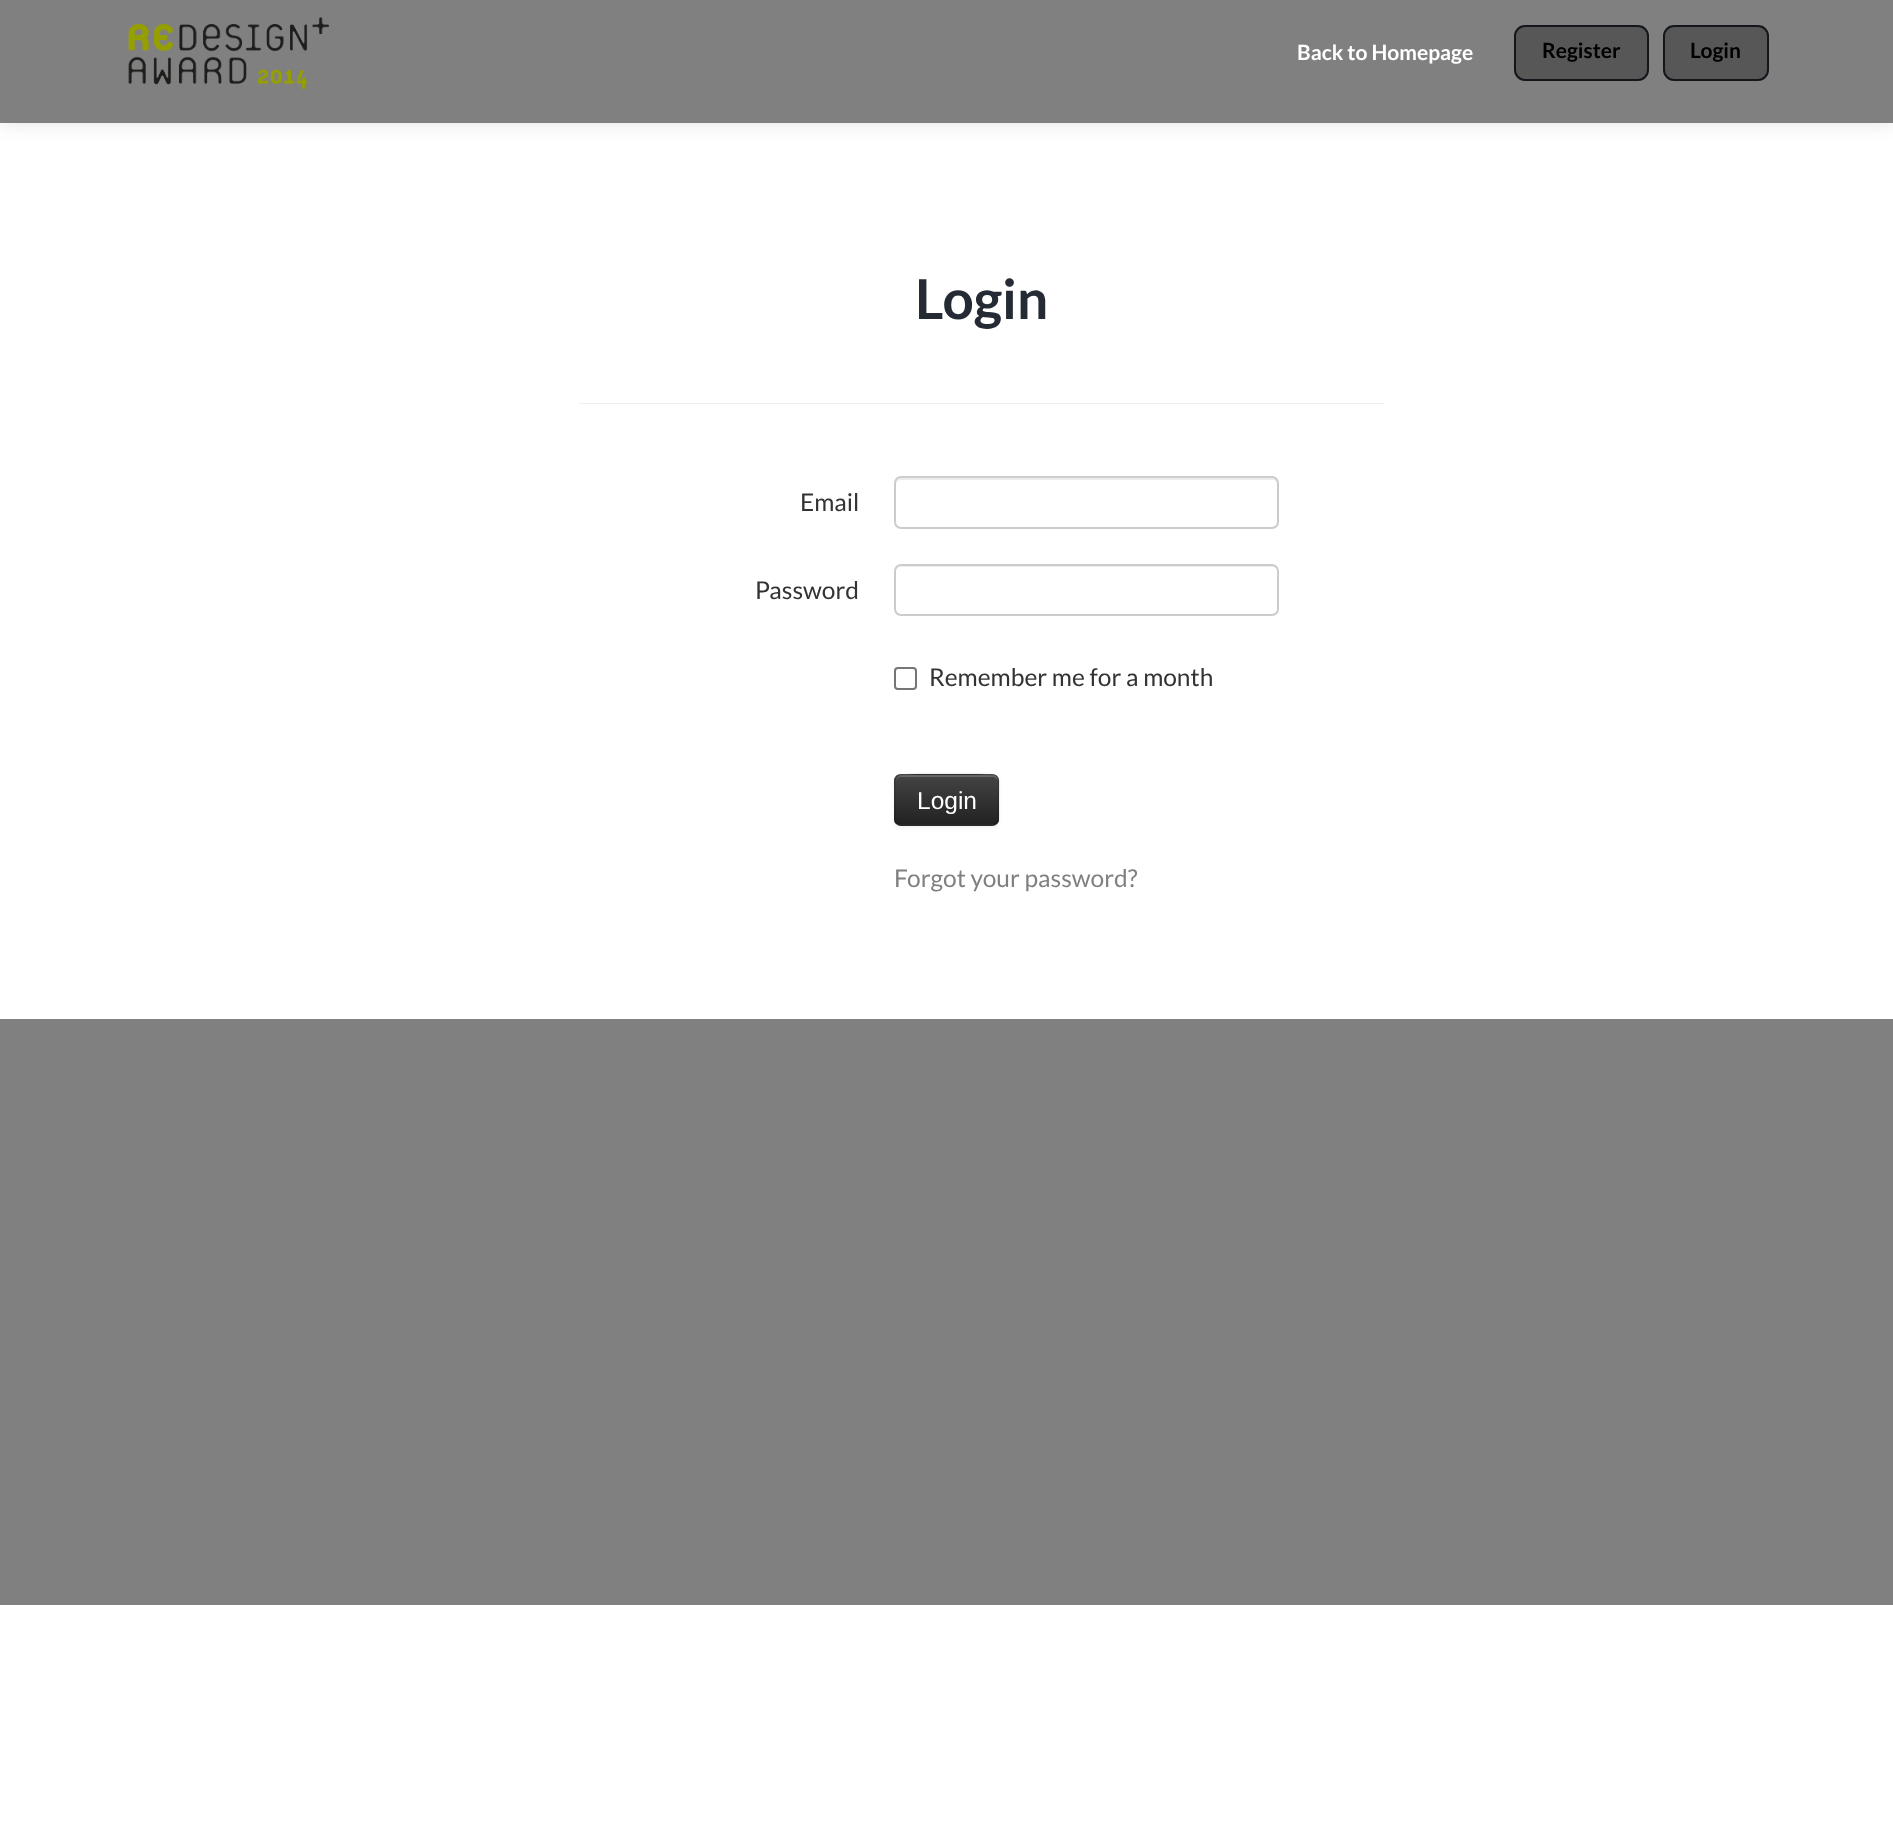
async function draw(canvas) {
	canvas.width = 1893;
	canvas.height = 1843;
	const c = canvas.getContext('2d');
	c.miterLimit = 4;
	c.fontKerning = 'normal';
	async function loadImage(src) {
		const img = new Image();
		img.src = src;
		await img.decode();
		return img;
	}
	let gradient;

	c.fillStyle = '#fff';
	c.fillRect(0, 0, 1893, 1843);
	c.fillStyle = '#0000001a';
	c.filter = 'blur(9px)';
	c.beginPath();
	c.rect(0, 2, 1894, 122);
	c.fill();
	c.filter = 'none';
	c.fillStyle = '#808080';
	c.fillRect(0, 0, 1893, 123);
	c.drawImage(await loadImage('img1.png'), 128, 17, 201, 73);
	c.font = 'bold 21px Lato';
	c.fillStyle = '#fff';
	c.fillText('Back to Homepage', 1297, 60);
	c.fillStyle = '#575757';
	c.beginPath();
	c.roundRect(1515, 26, 133, 54, 10);
	c.fill();
	c.strokeStyle = '#13161b';
	c.lineWidth = 2;
	c.stroke();
	c.fillStyle = '#000';
	c.fillText('Register', 1542, 58);
	c.fillStyle = '#575757';
	c.beginPath();
	c.roundRect(1664, 26, 104, 54, 10);
	c.fill();
	c.stroke();
	c.fillStyle = '#000';
	c.fillText('Login', 1690, 58);
	c.font = 'bold 55px Lato';
	c.fillStyle = '#252b34';
	c.fillText('Login', 915, 319);
	c.fillStyle = '#eee';
	c.fillRect(579, 403, 805, 1);
	c.font = '24.5px Lato';
	c.fillStyle = '#333';
	c.fillText('Email', 800, 511);
	c.fillStyle = '#ececec';
	c.beginPath();
	c.moveTo(901, 480);
	c.lineTo(1272, 480);
	c.bezierCurveTo(1275, 480, 1278, 482, 1278, 485);
	c.lineTo(1278, 483);
	c.bezierCurveTo(1278, 480, 1276, 478, 1273, 478);
	c.lineTo(901, 478);
	c.bezierCurveTo(898, 478, 896, 480, 896, 483);
	c.lineTo(896, 485);
	c.bezierCurveTo(896, 482, 898, 480, 901, 480);
	c.closePath();
	c.fill();
	c.beginPath();
	c.roundRect(895, 477, 383, 51, 6);
	c.strokeStyle = '#ccc';
	c.stroke();
	c.fillStyle = '#333';
	c.fillText('Password', 755, 599);
	c.fillStyle = '#ececec';
	c.beginPath();
	c.moveTo(901, 567);
	c.lineTo(1272, 567);
	c.bezierCurveTo(1275, 567, 1278, 569, 1278, 572);
	c.lineTo(1278, 570);
	c.bezierCurveTo(1278, 567, 1276, 565, 1273, 565);
	c.lineTo(901, 565);
	c.bezierCurveTo(898, 565, 896, 567, 896, 570);
	c.lineTo(896, 572);
	c.bezierCurveTo(896, 569, 898, 567, 901, 567);
	c.closePath();
	c.fill();
	c.beginPath();
	c.roundRect(895, 565, 383, 50, 6);
	c.stroke();
	c.beginPath();
	c.roundRect(895, 668, 21, 21, 3);
	c.strokeStyle = '#767676';
	c.stroke();
	c.fillStyle = '#333';
	c.fillText('Remember me for a month', 929, 686);
	c.fillStyle = '#0000000d';
	c.filter = 'blur(2px)';
	c.beginPath();
	c.roundRect(894, 775, 105, 53, 7);
	c.fill();
	c.filter = 'none';
	c.fillStyle = '#363636';
	c.beginPath();
	c.roundRect(894, 774, 105, 52, 7);
	c.fill();
	c.save();
	c.beginPath();
	c.roundRect(894, 774, 105, 52, 7);
	c.clip();
	gradient = c.createLinearGradient(947, 775, 947, 824);
	gradient.addColorStop(0, '#444');
	gradient.addColorStop(1, '#222');
	c.fillStyle = gradient;
	c.fillRect(894, 775, 105, 49);
	c.restore();
	c.fillStyle = '#ffffff33';
	c.beginPath();
	c.moveTo(901, 777);
	c.lineTo(992, 777);
	c.bezierCurveTo(995, 777, 998, 779, 998, 782);
	c.bezierCurveTo(998, 771, 986, 775, 978, 775);
	c.lineTo(916, 775);
	c.bezierCurveTo(908, 775, 896, 771, 896, 782);
	c.bezierCurveTo(896, 779, 898, 777, 901, 777);
	c.closePath();
	c.fill();
	c.beginPath();
	c.moveTo(996.5, 823.5);
	c.bezierCurveTo(995.5, 824.5, 994, 825, 992, 825);
	c.lineTo(901, 825);
	c.bezierCurveTo(899.5, 825, 898, 824.5, 897, 823.5);
	c.strokeStyle = '#00000040';
	c.lineWidth = 1.8;
	c.stroke();
	c.beginPath();
	c.moveTo(897, 823.5);
	c.bezierCurveTo(894, 820.5, 895, 816, 895, 812.5);
	c.lineTo(895, 800);
	c.bezierCurveTo(895, 773, 890.5, 774.5, 916.5, 774.5);
	c.lineTo(977, 774.5);
	c.bezierCurveTo(1003, 774.5, 998.5, 773, 998.5, 800);
	c.lineTo(998.5, 812.5);
	c.bezierCurveTo(998.5, 816, 999.5, 820.5, 996.5, 823.5);
	c.strokeStyle = '#0000001a';
	c.stroke();
	c.font = '24.5px Liberation Sans';
	c.fillStyle = '#fff';
	c.fillText('Login', 917, 809);
	c.font = '24.5px Lato';
	c.fillStyle = '#808080';
	c.fillText('Forgot your password?', 894, 887);
	c.fillRect(0, 1019, 1893, 586);
}

draw(document.querySelector('canvas'));
